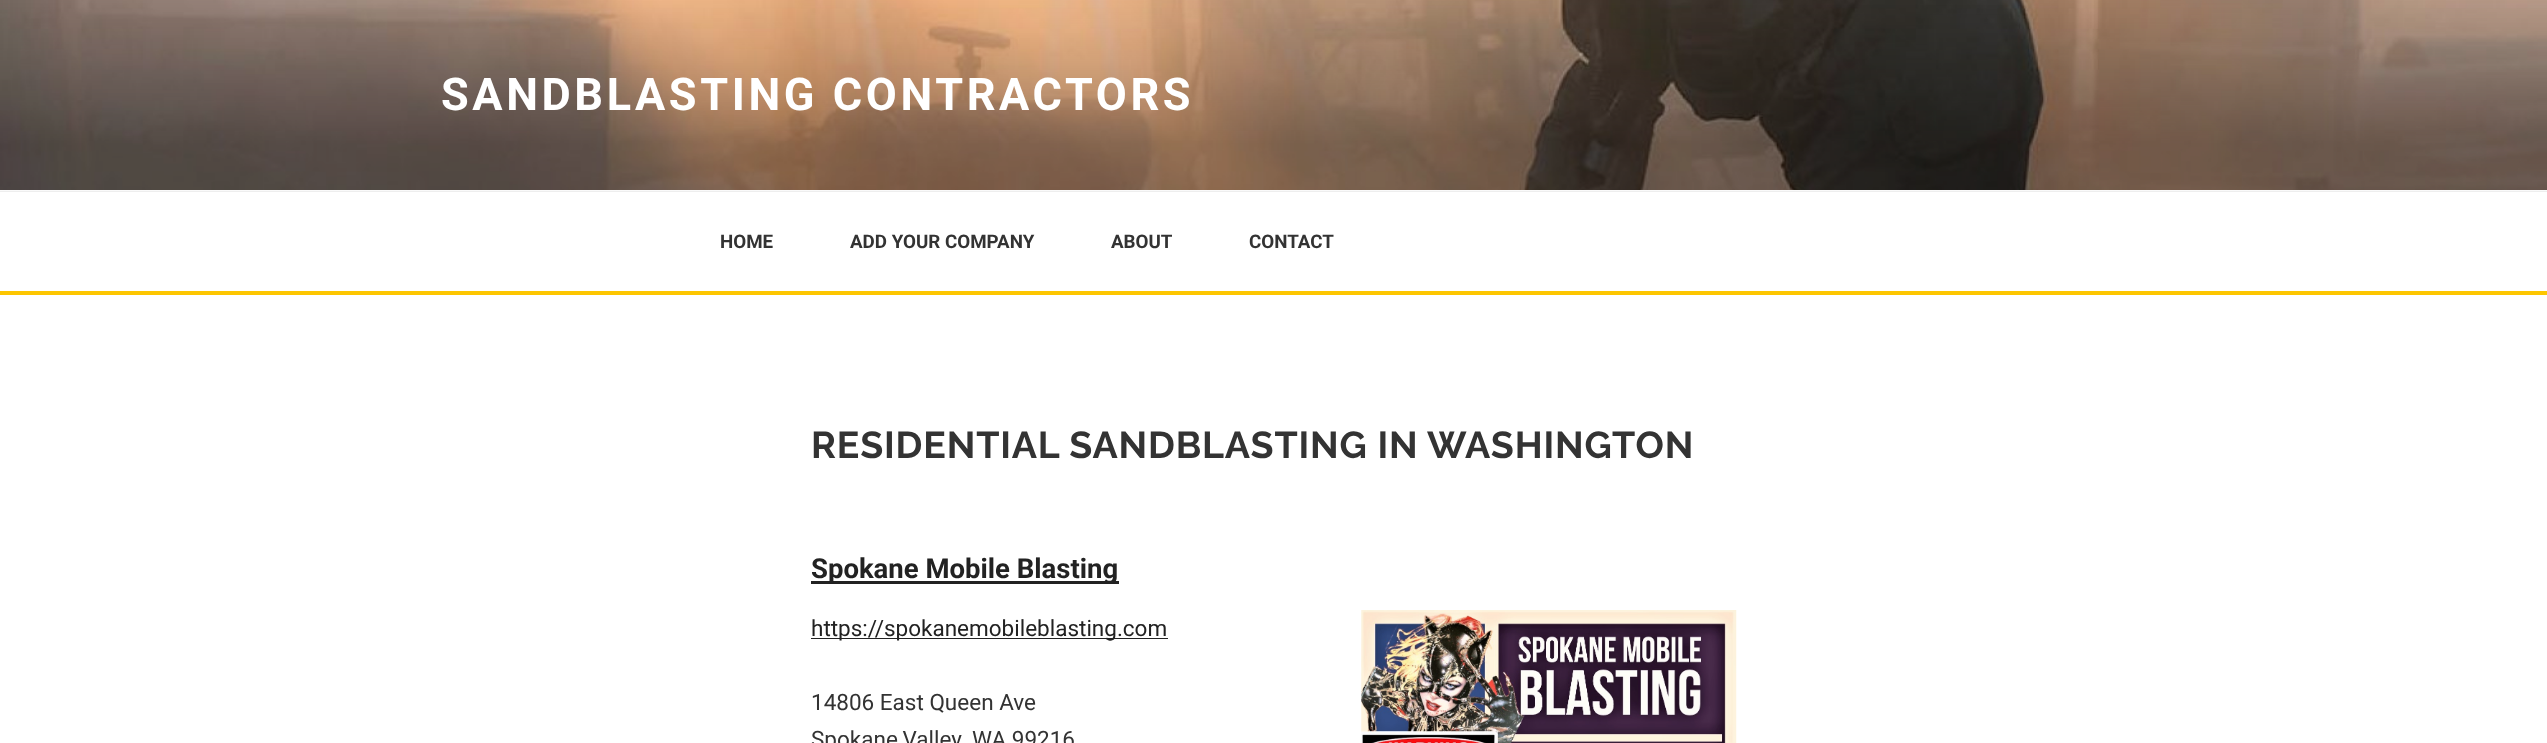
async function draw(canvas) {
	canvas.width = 2547;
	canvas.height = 743;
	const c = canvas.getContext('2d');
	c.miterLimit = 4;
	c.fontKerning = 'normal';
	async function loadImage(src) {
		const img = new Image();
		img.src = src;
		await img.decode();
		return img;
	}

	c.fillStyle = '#fff';
	c.fillRect(0, 0, 2547, 743);
	c.fillStyle = '#fafafa';
	c.fillRect(0, 190, 2547, 1);
	c.drawImage(await loadImage('img1.png'), 0, 0, 2547, 190);
	c.letterSpacing = '3.6px';
	c.font = 'bold 45px Roboto';
	c.fillStyle = '#fff';
	c.fillText('SANDBLASTING CONTRACTORS', 441, 110);
	c.fillStyle = '#eee';
	c.fillRect(0, 191, 2547, 1);
	c.fillStyle = '#fdc600';
	c.fillRect(0, 291, 2547, 4);
	c.letterSpacing = '0px';
	c.font = 'bold 18.75px Roboto';
	c.fillStyle = '#333';
	for (const [text, x, y] of [
		['HOME', 720, 248],
		['ADD YOUR COMPANY', 850, 248],
		['ABOUT', 1111, 248],
		['CONTACT', 1249, 248],
	]) {
		c.fillText(text, x, y);
	}
	c.letterSpacing = '0.85px';
	c.font = 'bold 37.5px Raleway';
	c.fillText('RESIDENTIAL SANDBLASTING IN WASHINGTON', 811, 458);
	c.fillStyle = '#222';
	c.fillRect(811, 581, 308, 3);
	c.letterSpacing = '0px';
	c.font = 'bold 27.5px Roboto';
	c.fillText('Spokane Mobile Blasting', 811, 578);
	c.fillRect(811, 638, 357, 1);
	c.font = '22.5px Roboto';
	c.fillText('https://spokanemobileblasting.com', 811, 636);
	c.drawImage(await loadImage('img2.png'), 1361, 610, 376, 133);
	c.fillStyle = '#333';
	c.fillText('14806 East Queen Ave', 811, 710);
	c.wordSpacing = '-1px';
	c.fillText('Spokane Valley', 811, 747);
	c.wordSpacing = '0px';
	c.fillText('WA 99216', 972, 747);
}

draw(document.querySelector('canvas'));
